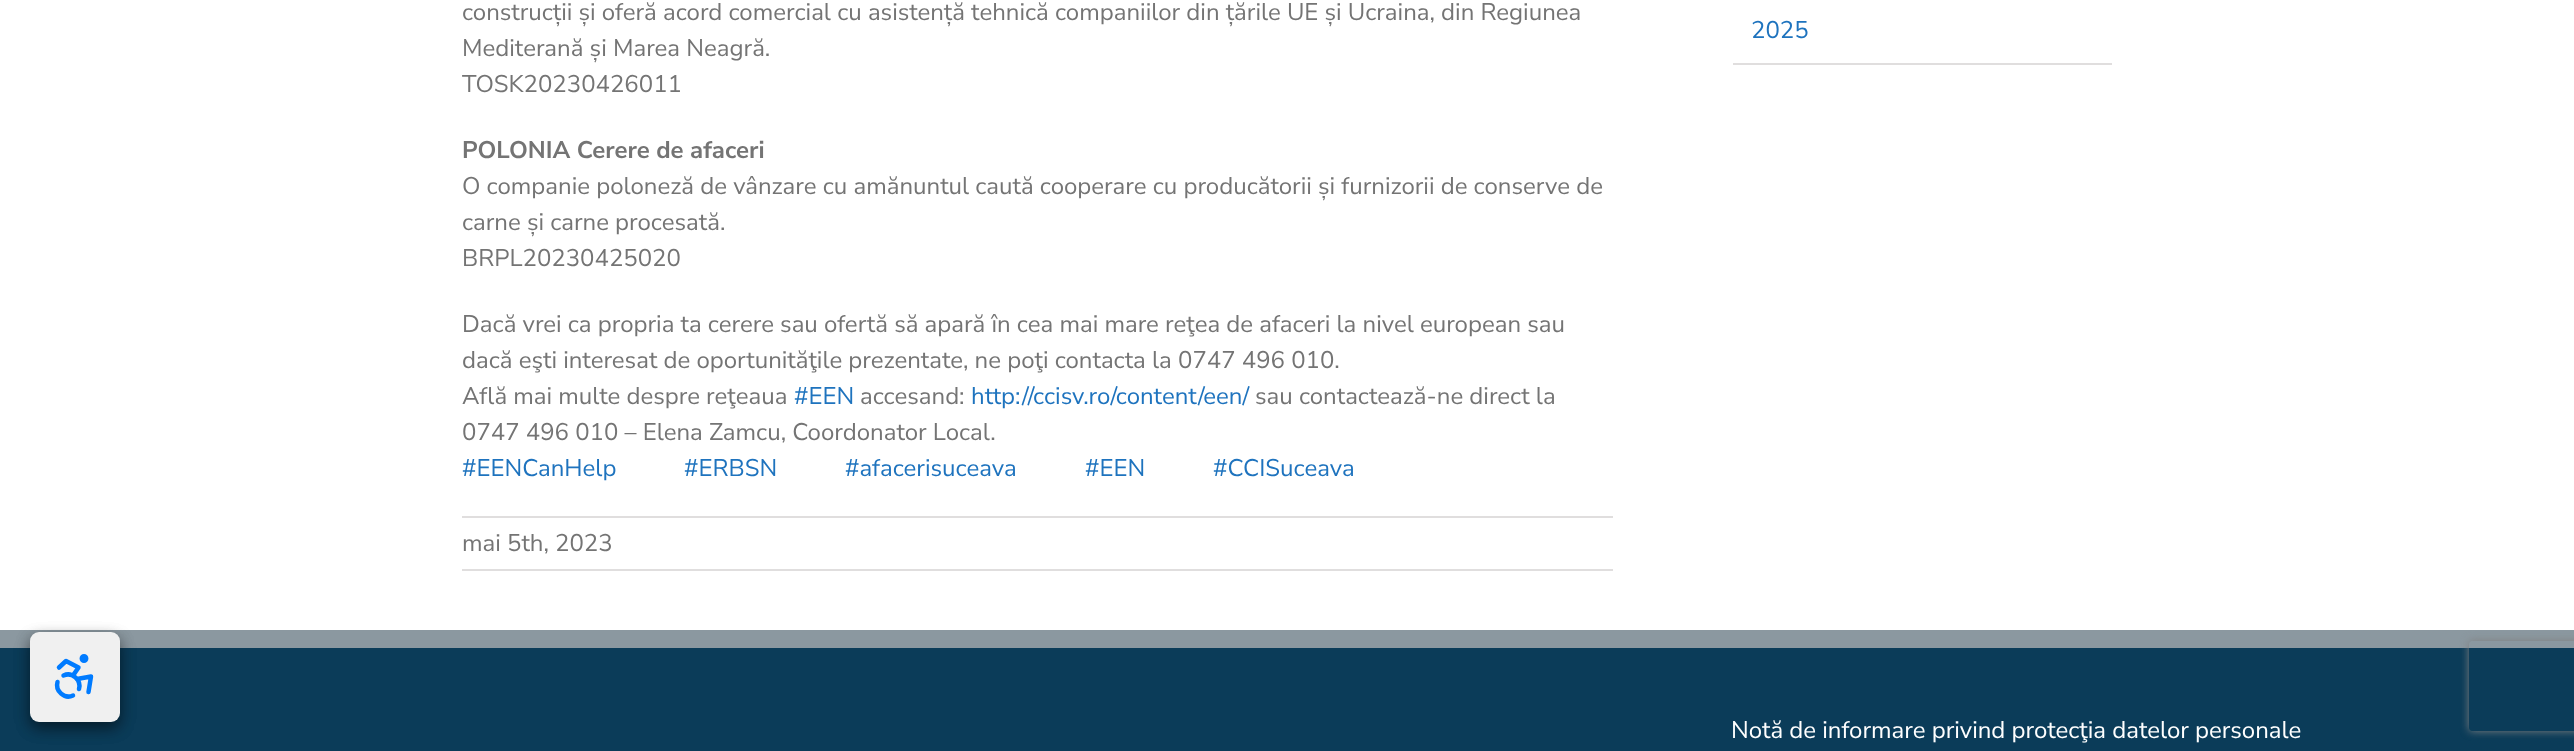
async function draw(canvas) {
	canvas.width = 2574;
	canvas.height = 751;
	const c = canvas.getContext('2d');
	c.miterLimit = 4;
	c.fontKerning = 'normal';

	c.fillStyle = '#fff';
	c.fillRect(0, 0, 2574, 751);
	c.fillStyle = '#0b3c59';
	c.fillRect(0, 648, 2574, 103);
	c.fillStyle = '#8b98a0';
	c.fillRect(0, 630, 2574, 18);
	c.fillStyle = '#0000004d';
	c.filter = 'blur(7.5px)';
	c.beginPath();
	c.roundRect(30, 638, 90, 90, 9);
	c.fill();
	c.filter = 'none';
	c.filter = 'blur(7.5px)';
	c.beginPath();
	c.roundRect(30, 638, 90, 90, 9);
	c.fill();
	c.filter = 'none';
	c.fillStyle = '#f0f0f0';
	c.beginPath();
	c.roundRect(30, 632, 90, 90, 9);
	c.fill();
	c.beginPath();
	c.arc(84, 658.5, 2.2, 0, 2 * Math.PI);
	c.strokeStyle = '#007bff';
	c.lineWidth = 4.5;
	c.stroke();
	c.beginPath();
	c.moveTo(88.5, 692);
	c.lineTo(91, 676.5);
	c.lineTo(77, 679);
	c.moveTo(59, 667.5);
	c.lineTo(66, 661);
	c.lineTo(78.5, 667.5);
	c.lineTo(73, 675.5);
	c.moveTo(57.5, 682);
	c.bezierCurveTo(55, 691, 64.5, 699.5, 73, 695.5);
	c.moveTo(79, 689);
	c.bezierCurveTo(81.5, 680, 72, 671.5, 63.5, 675.5);
	c.lineCap = 'round';
	c.lineJoin = 'round';
	c.stroke();
	c.font = '24px Nunito Sans';
	c.fillStyle = '#747474';
	for (const [text, x, y] of [
		['construcții și oferă acord comercial cu asistență tehnică companiilor din țările UE și Ucraina, din Regiunea', 462, 20],
		['Mediterană și Marea Neagră.', 462, 56],
		['TOSK20230426011', 462, 92],
	]) {
		c.fillText(text, x, y);
	}
	c.font = 'bold 24px Nunito Sans';
	c.fillText('POLONIA Cerere de afaceri', 462, 158);
	c.font = '24px Nunito Sans';
	for (const [text, x, y] of [
		['O companie poloneză de vânzare cu amănuntul caută cooperare cu producătorii și furnizorii de conserve de', 462, 194],
		['carne și carne procesată.', 462, 230],
		['BRPL20230425020', 462, 266],
		['Dacă vrei ca propria ta cerere sau ofertă să apară în cea mai mare reţea de afaceri la nivel european sau', 462, 332],
		['dacă eşti interesat de oportunităţile prezentate, ne poţi contacta la 0747 496 010.', 462, 368],
		['Află mai multe despre reţeaua', 462, 404],
	]) {
		c.fillText(text, x, y);
	}
	c.fillStyle = '#1e73be';
	c.fillText('#EEN', 794, 404);
	c.fillStyle = '#747474';
	c.fillText('accesand:', 860, 404);
	c.fillStyle = '#1e73be';
	c.fillText('http://ccisv.ro/content/een/', 971, 404);
	c.fillStyle = '#747474';
	c.fillText('sau contactează-ne direct la', 1255, 404);
	c.fillText('0747 496 010 – Elena Zamcu, Coordonator Local.', 462, 440);
	c.fillStyle = '#1e73be';
	for (const [text, x, y] of [
		['#EENCanHelp', 462, 476],
		['#ERBSN', 684, 476],
		['#afacerisuceava', 845, 476],
		['#EEN', 1085, 476],
		['#CCISuceava', 1213, 476],
	]) {
		c.fillText(text, x, y);
	}
	c.fillStyle = '#e0dede';
	c.fillRect(462, 516, 1151, 2);
	c.fillRect(462, 569, 1151, 2);
	c.fillStyle = '#747474';
	c.fillText('mai 5th, 2023', 462, 551);
	c.fillStyle = '#e0dede';
	c.fillRect(1733, 63, 379, 2);
	c.fillStyle = '#1e73be';
	c.fillText('2025', 1751, 38);
	c.fillStyle = '#fff';
	c.fillText('Notă de informare privind protecţia datelor personale', 1731, 738);
	c.save();
	c.beginPath();
	c.moveTo(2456, 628);
	c.lineTo(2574, 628);
	c.lineTo(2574, 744);
	c.lineTo(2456, 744);
	c.closePath();
	c.moveTo(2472, 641);
	c.lineTo(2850, 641);
	c.bezierCurveTo(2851.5, 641, 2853, 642.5, 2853, 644);
	c.lineTo(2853, 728);
	c.bezierCurveTo(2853, 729.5, 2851.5, 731, 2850, 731);
	c.lineTo(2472, 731);
	c.bezierCurveTo(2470.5, 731, 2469, 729.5, 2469, 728);
	c.lineTo(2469, 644);
	c.bezierCurveTo(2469, 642.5, 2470.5, 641, 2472, 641);
	c.closePath();
	c.clip('evenodd');
	c.fillStyle = '#808080';
	c.filter = 'blur(4px)';
	c.beginPath();
	c.roundRect(2469, 641, 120, 90, 3);
	c.fill();
	c.filter = 'none';
	c.restore();
}

draw(document.querySelector('canvas'));
